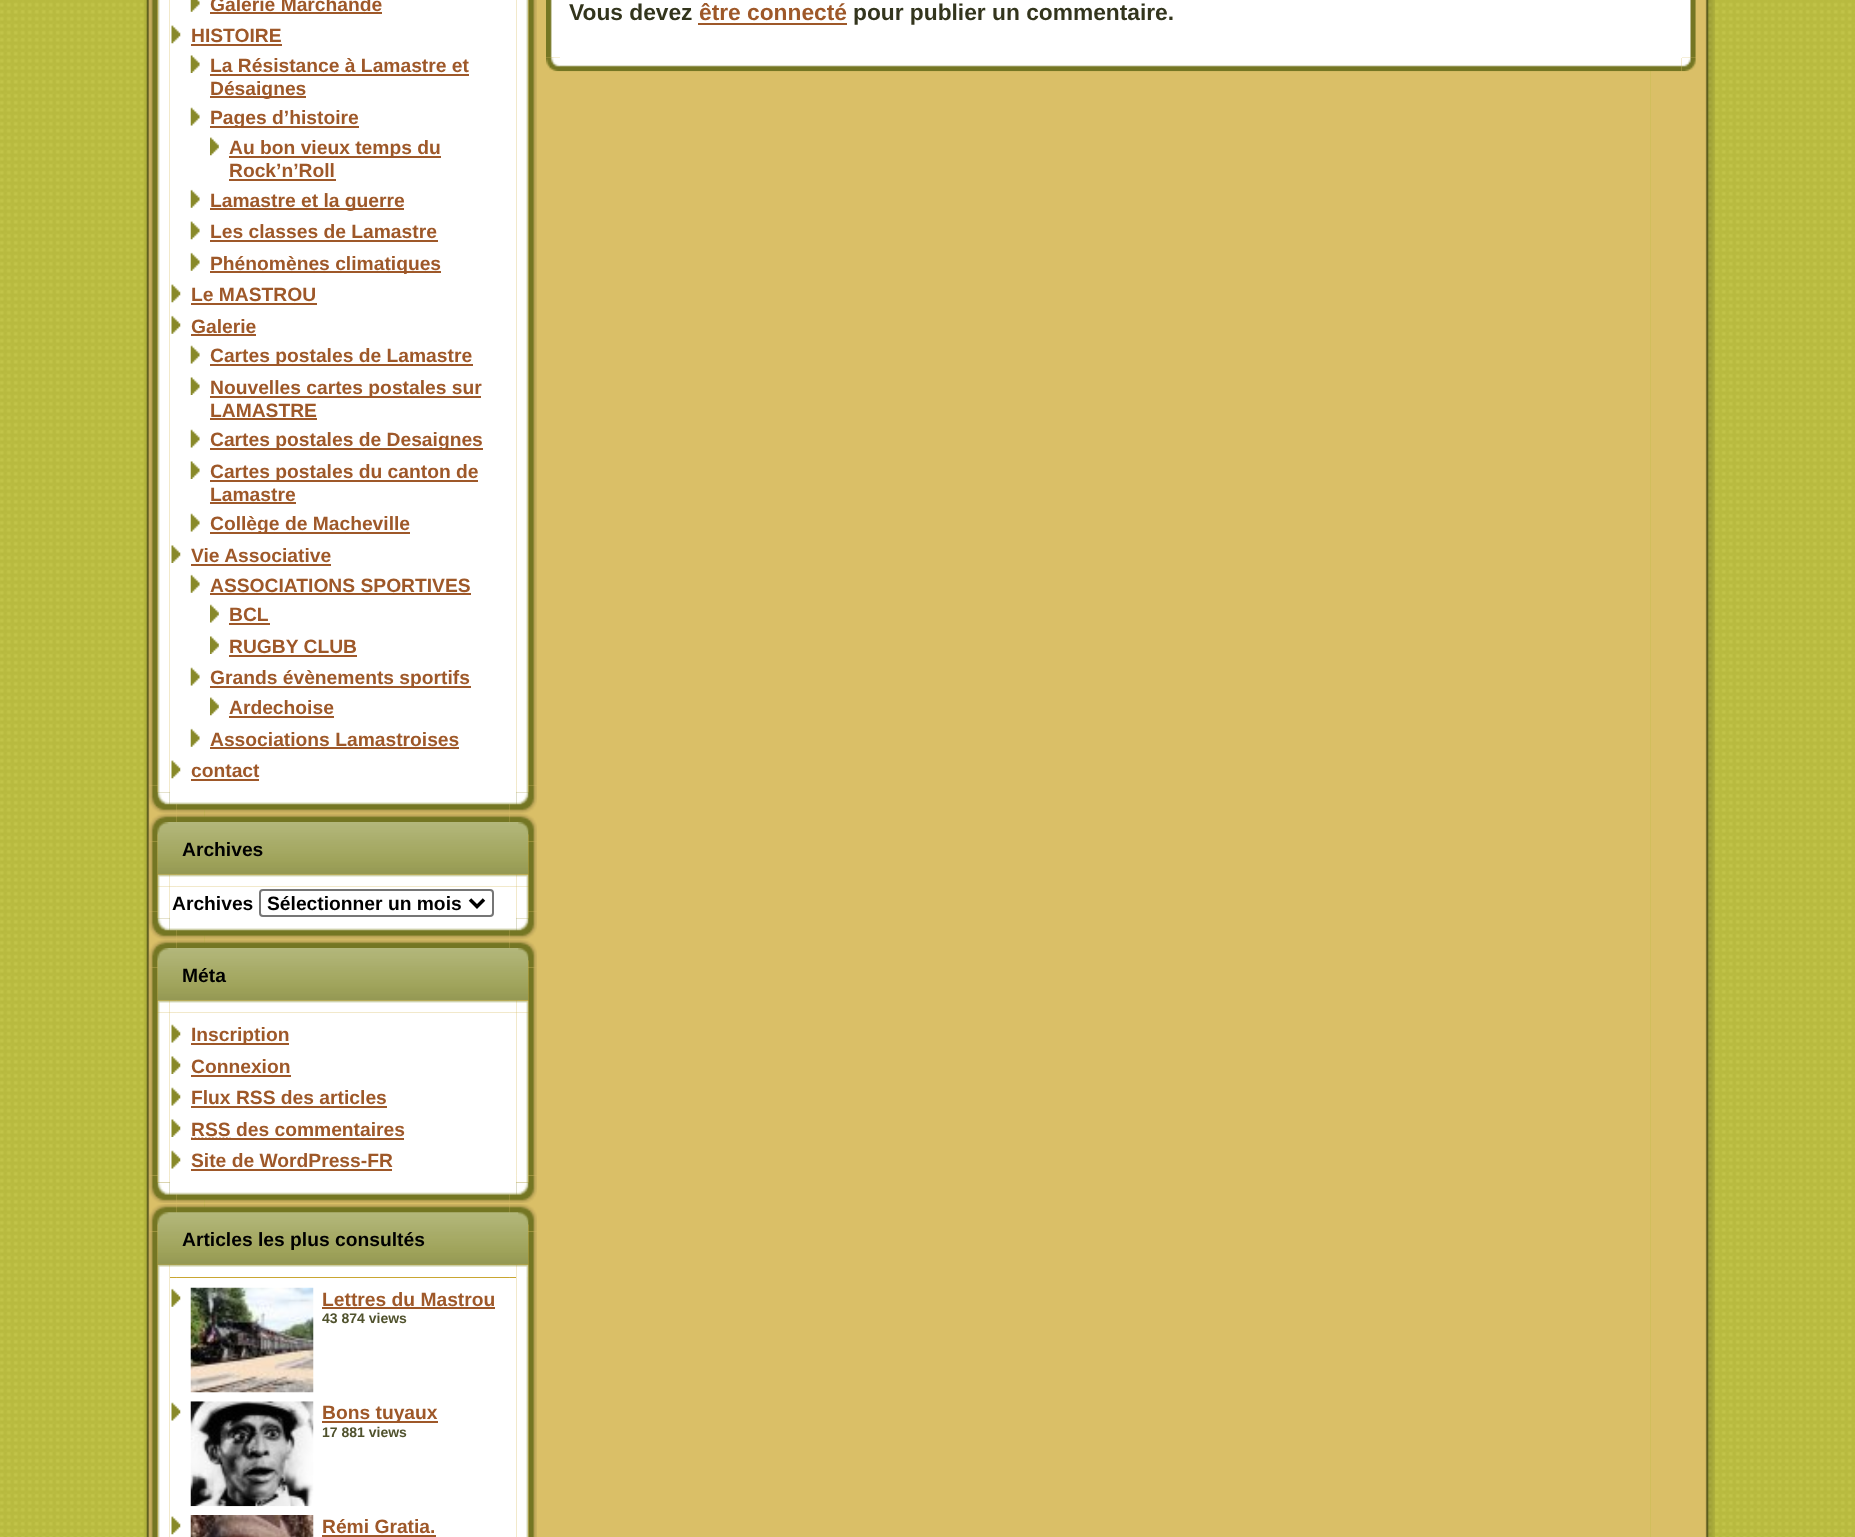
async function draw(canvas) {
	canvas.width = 1855;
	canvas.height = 1537;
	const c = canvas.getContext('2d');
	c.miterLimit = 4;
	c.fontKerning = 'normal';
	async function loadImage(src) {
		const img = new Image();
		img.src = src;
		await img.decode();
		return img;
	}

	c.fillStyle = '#fff';
	c.fillRect(0, 0, 1855, 1537);
	c.drawImage(await loadImage('img1.png'), 0, 0, 1855, 1537);
	c.drawImage(await loadImage('img2.png'), 144, 0, 61, 1537);
	c.drawImage(await loadImage('img3.png'), 149, 0, 21, 785);
	c.drawImage(await loadImage('img21.png'), 149, 785, 28, 28);
	c.drawImage(await loadImage('img17.png'), 157, 792, 13, 13);
	c.fillStyle = '#dabf67';
	c.fillRect(205, 0, 1445, 1537);
	c.drawImage(await loadImage('img23.png'), 509, 785, 28, 28);
	c.drawImage(await loadImage('img19.png'), 516, 792, 13, 13);
	c.drawImage(await loadImage('img22.png'), 177, 804, 332, 9);
	c.drawImage(await loadImage('img18.png'), 169, 792, 348, 13);
	c.drawImage(await loadImage('img4.png'), 157, 0, 13, 793);
	c.fillStyle = '#fff';
	c.fillRect(170, 0, 346, 793);
	c.drawImage(await loadImage('img5.png'), 190, 0, 10, 12);
	c.font = 'bold 19.25px Liberation Sans';
	c.fillStyle = '#9e5829';
	c.fillText('Galerie Marchande', 210, 11);
	c.fillRect(210, 12, 172, 2);
	c.drawImage(await loadImage('img6.png'), 171, 25, 10, 19);
	c.fillText('HISTOIRE', 191, 42);
	c.fillRect(191, 44, 91, 2);
	c.drawImage(await loadImage('img7.png'), 190, 55, 10, 18);
	c.fillText('La Résistance à Lamastre et', 210, 72);
	c.fillRect(210, 74, 259, 2);
	c.fillRect(210, 96, 96, 2);
	c.fillText('Désaignes', 210, 95);
	c.drawImage(await loadImage('img8.png'), 190, 107, 10, 19);
	c.fillRect(210, 126, 149, 2);
	c.fillText('Pages d’histoire', 210, 124);
	c.drawImage(await loadImage('img9.png'), 210, 137, 9, 19);
	c.fillRect(229, 156, 212, 2);
	c.fillText('Au bon vieux temps du', 229, 154);
	c.fillText('Rock’n’Roll', 229, 177);
	c.fillRect(229, 179, 107, 2);
	c.drawImage(await loadImage('img10.png'), 190, 189, 10, 19);
	c.fillRect(210, 208, 194, 2);
	c.fillText('Lamastre et la guerre', 210, 207);
	c.drawImage(await loadImage('img11.png'), 190, 221, 10, 19);
	c.fillText('Les classes de Lamastre', 210, 238);
	c.fillRect(210, 240, 228, 2);
	c.drawImage(await loadImage('img10.png'), 190, 252, 10, 19);
	c.fillRect(210, 271, 231, 2);
	c.fillText('Phénomènes climatiques', 210, 270);
	c.drawImage(await loadImage('img6.png'), 171, 284, 10, 19);
	c.fillText('Le MASTROU', 191, 301);
	c.fillRect(191, 303, 126, 2);
	c.drawImage(await loadImage('img12.png'), 171, 315, 10, 19);
	c.fillText('Galerie', 191, 333);
	c.fillRect(191, 334, 65, 2);
	c.drawImage(await loadImage('img8.png'), 190, 345, 10, 19);
	c.fillRect(210, 364, 263, 2);
	c.fillText('Cartes postales de Lamastre', 210, 362);
	c.drawImage(await loadImage('img7.png'), 190, 377, 10, 18);
	c.fillRect(210, 396, 271, 2);
	c.fillText('Nouvelles cartes postales sur', 210, 394);
	c.fillText('LAMASTRE', 210, 417);
	c.fillRect(210, 418, 107, 2);
	c.drawImage(await loadImage('img8.png'), 190, 429, 10, 19);
	c.fillRect(210, 448, 273, 2);
	c.fillText('Cartes postales de Desaignes', 210, 446);
	c.drawImage(await loadImage('img7.png'), 190, 461, 10, 18);
	c.fillRect(210, 480, 268, 2);
	c.fillText('Cartes postales du canton de', 210, 478);
	c.fillText('Lamastre', 210, 501);
	c.fillRect(210, 502, 86, 2);
	c.drawImage(await loadImage('img8.png'), 190, 513, 10, 19);
	c.fillRect(210, 532, 200, 2);
	c.fillText('Collège de Macheville', 210, 530);
	c.drawImage(await loadImage('img13.png'), 171, 545, 10, 18);
	c.fillText('Vie Associative', 191, 562);
	c.fillRect(191, 564, 140, 2);
	c.drawImage(await loadImage('img10.png'), 190, 574, 10, 19);
	c.fillText('ASSOCIATIONS SPORTIVES', 210, 592);
	c.fillRect(210, 593, 261, 2);
	c.drawImage(await loadImage('img14.png'), 210, 604, 9, 19);
	c.fillText('BCL', 229, 621);
	c.fillRect(229, 623, 41, 2);
	c.drawImage(await loadImage('img15.png'), 210, 636, 9, 18);
	c.fillText('RUGBY CLUB', 229, 653);
	c.fillRect(229, 655, 128, 2);
	c.drawImage(await loadImage('img8.png'), 190, 667, 10, 19);
	c.fillRect(210, 686, 261, 2);
	c.fillText('Grands évènements sportifs', 210, 684);
	c.drawImage(await loadImage('img9.png'), 210, 697, 9, 19);
	c.fillText('Ardechoise', 229, 714);
	c.fillRect(229, 716, 105, 2);
	c.drawImage(await loadImage('img10.png'), 190, 728, 10, 19);
	c.fillText('Associations Lamastroises', 210, 746);
	c.fillRect(210, 747, 249, 2);
	c.drawImage(await loadImage('img6.png'), 171, 760, 10, 19);
	c.fillText('contact', 191, 777);
	c.fillRect(191, 779, 68, 2);
	c.drawImage(await loadImage('img20.png'), 516, 0, 21, 785);
	c.drawImage(await loadImage('img16.png'), 516, 0, 13, 793);
	c.drawImage(await loadImage('img24.png'), 149, 813, 28, 29);
	c.drawImage(await loadImage('img25.png'), 177, 813, 332, 9);
	c.drawImage(await loadImage('img26.png'), 509, 813, 28, 29);
	c.drawImage(await loadImage('img27.png'), 149, 841, 28, 70);
	c.drawImage(await loadImage('img38.png'), 509, 841, 28, 70);
	c.fillStyle = '#c9a631';
	c.fillRect(177, 874, 332, 13);
	c.drawImage(await loadImage('img28.png'), 157, 822, 361, 53);
	c.drawImage(await loadImage('img29.png'), 518, 822, 11, 53);
	c.fillStyle = '#000';
	c.fillText('Archives', 182, 856);
	c.drawImage(await loadImage('img30.png'), 157, 874, 13, 13);
	c.drawImage(await loadImage('img32.png'), 516, 874, 13, 13);
	c.drawImage(await loadImage('img31.png'), 169, 874, 348, 13);
	c.drawImage(await loadImage('img39.png'), 149, 911, 28, 28);
	c.drawImage(await loadImage('img35.png'), 157, 918, 13, 13);
	c.drawImage(await loadImage('img41.png'), 509, 911, 28, 28);
	c.drawImage(await loadImage('img37.png'), 516, 918, 13, 13);
	c.drawImage(await loadImage('img40.png'), 177, 930, 332, 9);
	c.drawImage(await loadImage('img36.png'), 169, 918, 348, 13);
	c.drawImage(await loadImage('img33.png'), 157, 886, 13, 33);
	c.fillStyle = '#fff';
	c.fillRect(170, 887, 346, 32);
	c.drawImage(await loadImage('img34.png'), 516, 886, 13, 33);
	c.fillStyle = '#000';
	c.fillText('Archives', 172, 910);
	c.beginPath();
	c.roundRect(260, 890, 233, 26, 3);
	c.strokeStyle = '#767676';
	c.lineWidth = 2;
	c.stroke();
	c.beginPath();
	c.moveTo(470, 899.5);
	c.lineTo(477, 906.5);
	c.lineTo(484, 899.5);
	c.strokeStyle = '#000';
	c.lineWidth = 3.5;
	c.stroke();
	c.fillText('Sélectionner un mois', 267, 910);
	c.drawImage(await loadImage('img24.png'), 149, 939, 28, 29);
	c.drawImage(await loadImage('img42.png'), 177, 939, 332, 9);
	c.drawImage(await loadImage('img26.png'), 509, 939, 28, 29);
	c.drawImage(await loadImage('img54.png'), 149, 1175, 28, 28);
	c.drawImage(await loadImage('img43.png'), 149, 967, 28, 209);
	c.drawImage(await loadImage('img56.png'), 509, 1175, 28, 28);
	c.drawImage(await loadImage('img53.png'), 509, 967, 28, 209);
	c.fillStyle = '#c9a631';
	c.fillRect(177, 1000, 332, 13);
	c.drawImage(await loadImage('img44.png'), 157, 948, 361, 53);
	c.drawImage(await loadImage('img29.png'), 518, 948, 11, 53);
	c.fillStyle = '#000';
	c.fillText('Méta', 182, 982);
	c.drawImage(await loadImage('img45.png'), 157, 1000, 13, 13);
	c.drawImage(await loadImage('img32.png'), 516, 1000, 13, 13);
	c.drawImage(await loadImage('img46.png'), 169, 1000, 348, 13);
	c.drawImage(await loadImage('img50.png'), 157, 1182, 13, 13);
	c.drawImage(await loadImage('img52.png'), 516, 1182, 13, 13);
	c.drawImage(await loadImage('img55.png'), 177, 1194, 332, 9);
	c.drawImage(await loadImage('img51.png'), 169, 1182, 348, 13);
	c.drawImage(await loadImage('img47.png'), 157, 1012, 13, 171);
	c.fillStyle = '#fff';
	c.fillRect(170, 1013, 346, 170);
	c.drawImage(await loadImage('img48.png'), 516, 1012, 13, 171);
	c.drawImage(await loadImage('img49.png'), 171, 1024, 10, 19);
	c.fillStyle = '#9e5829';
	c.fillRect(191, 1043, 98, 2);
	c.fillText('Inscription', 191, 1041);
	c.drawImage(await loadImage('img13.png'), 171, 1056, 10, 18);
	c.fillText('Connexion', 191, 1073);
	c.fillRect(191, 1075, 100, 2);
	c.drawImage(await loadImage('img49.png'), 171, 1087, 10, 19);
	c.fillText('Flux RSS des articles', 191, 1104);
	c.fillRect(191, 1106, 45, 2);
	c.beginPath();
	c.moveTo(235.5, 1107);
	c.lineTo(275.5, 1107);
	c.strokeStyle = '#9e5829';
	c.lineWidth = 1.8;
	c.setLineDash([1.75, 1.75]);
	c.stroke();
	c.fillRect(236, 1106, 151, 2);
	c.drawImage(await loadImage('img13.png'), 171, 1119, 10, 18);
	c.fillText('RSS des commentaires', 191, 1136);
	c.beginPath();
	c.moveTo(191, 1138.5);
	c.lineTo(230.5, 1138.5);
	c.stroke();
	c.fillRect(191, 1138, 213, 2);
	c.drawImage(await loadImage('img49.png'), 171, 1150, 10, 19);
	c.fillText('Site de WordPress-FR', 191, 1167);
	c.fillRect(191, 1169, 201, 2);
	c.drawImage(await loadImage('img57.png'), 149, 1204, 28, 28);
	c.drawImage(await loadImage('img58.png'), 177, 1204, 332, 9);
	c.drawImage(await loadImage('img59.png'), 509, 1204, 28, 28);
	c.drawImage(await loadImage('img60.png'), 149, 1231, 28, 306);
	c.drawImage(await loadImage('img71.png'), 509, 1231, 28, 306);
	c.fillStyle = '#c9a631';
	c.fillRect(177, 1264, 332, 14);
	c.drawImage(await loadImage('img61.png'), 157, 1212, 361, 53);
	c.drawImage(await loadImage('img62.png'), 518, 1212, 11, 53);
	c.fillStyle = '#000';
	c.fillText('Articles les plus consultés', 182, 1246);
	c.drawImage(await loadImage('img63.png'), 157, 1264, 13, 13);
	c.drawImage(await loadImage('img64.png'), 170, 1264, 346, 13);
	c.drawImage(await loadImage('img65.png'), 516, 1264, 13, 13);
	c.drawImage(await loadImage('img66.png'), 157, 1277, 13, 260);
	c.fillStyle = '#fff';
	c.fillRect(170, 1278, 346, 259);
	c.drawImage(await loadImage('img67.png'), 516, 1277, 13, 260);
	c.drawImage(await loadImage('img12.png'), 171, 1288, 10, 19);
	c.drawImage(await loadImage('img68.png'), 190, 1287, 124, 106);
	c.fillStyle = '#9e5829';
	c.fillText('Lettres du Mastrou', 322, 1306);
	c.fillRect(322, 1307, 173, 2);
	c.font = 'bold 14px Liberation Sans';
	c.fillStyle = '#50522d';
	c.fillText('43 874 views', 322, 1323);
	c.drawImage(await loadImage('img49.png'), 171, 1402, 10, 19);
	c.drawImage(await loadImage('img69.png'), 190, 1401, 124, 106);
	c.fillStyle = '#9e5829';
	c.fillRect(322, 1421, 116, 2);
	c.font = 'bold 19.25px Liberation Sans';
	c.fillText('Bons tuyaux', 322, 1419);
	c.font = 'bold 14px Liberation Sans';
	c.fillStyle = '#50522d';
	c.fillText('17 881 views', 322, 1437);
	c.drawImage(await loadImage('img6.png'), 171, 1516, 10, 19);
	c.drawImage(await loadImage('img70.png'), 190, 1515, 124, 22);
	c.font = 'bold 19.25px Liberation Sans';
	c.fillStyle = '#9e5829';
	c.fillText('Rémi Gratia.', 322, 1533);
	c.fillRect(322, 1535, 114, 2);
	c.drawImage(await loadImage('img72.png'), 546, 0, 14, 57);
	c.drawImage(await loadImage('img77.png'), 1650, 0, 65, 1537);
	c.drawImage(await loadImage('img76.png'), 1681, 57, 15, 15);
	c.fillStyle = '#fff';
	c.fillRect(560, 0, 1122, 58);
	c.drawImage(await loadImage('img73.png'), 1682, 0, 14, 57);
	c.font = 'bold 22.75px Liberation Sans';
	c.fillStyle = '#33351d';
	c.fillText('Vous devez', 569, 20);
	c.fillStyle = '#9e5829';
	c.fillText('être connecté', 699, 20);
	c.fillRect(698, 23, 149, 2);
	c.fillStyle = '#33351d';
	c.fillText('pour publier un commentaire.', 853, 20);
	c.drawImage(await loadImage('img74.png'), 546, 57, 14, 15);
	c.drawImage(await loadImage('img75.png'), 560, 58, 1122, 14);
}

draw(document.querySelector('canvas'));
